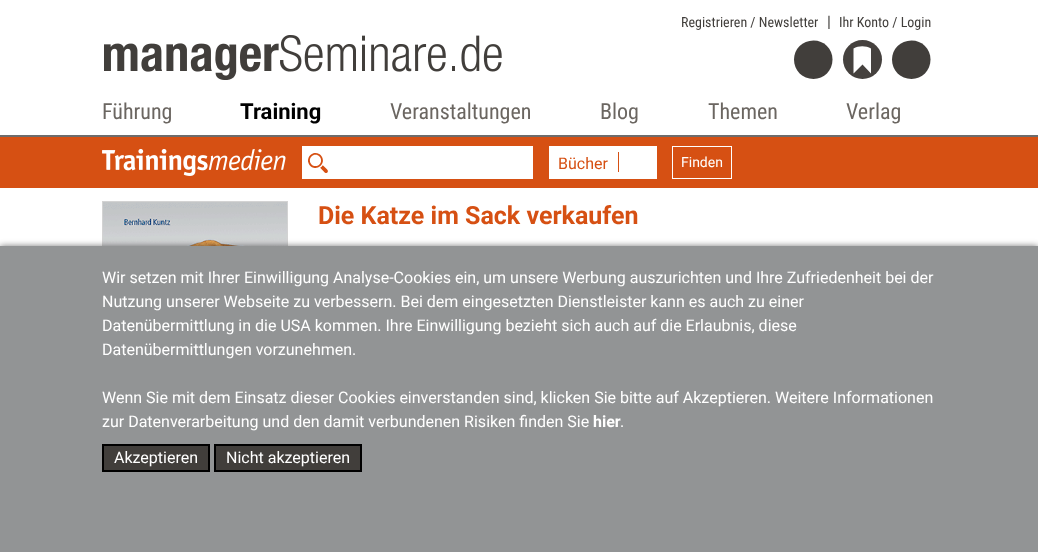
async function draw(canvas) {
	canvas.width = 1038;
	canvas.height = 552;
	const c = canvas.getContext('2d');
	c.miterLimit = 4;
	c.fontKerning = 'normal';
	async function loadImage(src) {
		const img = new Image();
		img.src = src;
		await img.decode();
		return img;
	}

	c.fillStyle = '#fff';
	c.fillRect(0, 0, 1038, 552);
	c.font = '14px Roboto Condensed';
	c.fillStyle = '#413e3b';
	c.fillText('Registrieren / Newsletter', 681, 27);
	c.font = '16px Roboto Condensed';
	c.fillText('|', 827, 27);
	c.font = '14px Roboto Condensed';
	c.fillText('Ihr Konto / Login', 839, 27);
	c.beginPath();
	c.moveTo(794, 59.5);
	c.bezierCurveTo(794, 49, 802.5, 40.5, 813.5, 40.5);
	c.bezierCurveTo(824, 40.5, 832.5, 48.5, 832.5, 59.5);
	c.bezierCurveTo(832.5, 70.5, 824, 79, 813.5, 79);
	c.bezierCurveTo(802.5, 79, 794, 70.5, 794, 59.5);
	c.fill();
	c.fillStyle = '#45413e';
	c.beginPath();
	c.arc(862.5, 59.5, 19.5, 0, 2 * Math.PI);
	c.fill();
	c.fillStyle = '#fff';
	c.beginPath();
	c.moveTo(862.5, 64.5);
	c.lineTo(871, 73.5);
	c.lineTo(871, 48.5);
	c.bezierCurveTo(866, 45.5, 858.5, 45.5, 853.5, 48.5);
	c.lineTo(853.5, 73.5);
	c.closePath();
	c.fill();
	c.fillStyle = '#413e3b';
	c.beginPath();
	c.moveTo(892, 59.5);
	c.bezierCurveTo(892, 49, 900.5, 40.5, 911.5, 40.5);
	c.bezierCurveTo(922, 40.5, 930.5, 48.5, 930.5, 59.5);
	c.bezierCurveTo(930.5, 70.5, 922, 79, 911.5, 79);
	c.bezierCurveTo(900.5, 79, 892, 70.5, 892, 59.5);
	c.fill();
	c.drawImage(await loadImage('img1.png'), 104, 35, 398, 45);
	c.font = '22px Roboto Condensed';
	c.fillStyle = '#6b6661';
	c.fillText('Führung', 102, 119);
	c.font = 'bold 22px Roboto';
	c.fillStyle = '#000';
	c.fillText('Training', 240, 119);
	c.font = '22px Roboto Condensed';
	c.fillStyle = '#6b6661';
	for (const [text, x, y] of [
		['Veranstaltungen', 390, 119],
		['Blog', 600, 119],
		['Themen', 708, 119],
		['Verlag', 846, 119],
	]) {
		c.fillText(text, x, y);
	}
	c.fillStyle = '#6d6c6c';
	c.fillRect(0, 135, 1038, 2);
	c.fillStyle = '#d65013';
	c.fillRect(0, 137, 1038, 51);
	c.drawImage(await loadImage('img2.png'), 102, 148, 184, 28);
	c.fillStyle = '#fff';
	c.fillRect(302, 146, 231, 33);
	c.drawImage(await loadImage('img3.png'), 308, 153, 20, 20);
	c.fillRect(549, 146, 108, 33);
	c.font = '16px Roboto';
	c.fillStyle = '#d65013';
	c.fillText('Bücher', 558, 169);
	c.fillRect(618, 152, 1, 20);
	c.strokeStyle = '#fff';
	c.strokeRect(672.5, 146.5, 59, 32);
	c.font = '14px Roboto';
	c.fillStyle = '#fff';
	c.fillText('Finden', 681, 167);
	c.strokeStyle = '#d3d3d3';
	c.strokeRect(102.5, 201.5, 185, 270);
	c.drawImage(await loadImage('img4.png'), 103, 202, 184, 44);
	c.font = 'bold 25px Roboto';
	c.fillStyle = '#d65013';
	c.fillText('Die Katze im Sack verkaufen', 318, 224);
	c.fillStyle = '#1e1e1e99';
	c.filter = 'blur(3px)';
	c.beginPath();
	c.rect(0, 246, 1038, 306);
	c.fill();
	c.filter = 'none';
	c.fillStyle = '#929495';
	c.fillRect(0, 246, 1038, 306);
	c.font = '16px Roboto';
	c.fillStyle = '#fff';
	for (const [text, x, y] of [
		['Wir setzen mit Ihrer Einwilligung Analyse-Cookies ein, um unsere Werbung auszurichten und Ihre Zufriedenheit bei der', 102, 283],
		['Nutzung unserer Webseite zu verbessern. Bei dem eingesetzten Dienstleister kann es auch zu einer', 102, 307],
		['Datenübermittlung in die USA kommen. Ihre Einwilligung bezieht sich auch auf die Erlaubnis, diese', 102, 331],
		['Datenübermittlungen vorzunehmen.', 102, 355],
		['Wenn Sie mit dem Einsatz dieser Cookies einverstanden sind, klicken Sie bitte auf Akzeptieren. Weitere Informationen', 102, 403],
		['zur Datenverarbeitung und den damit verbundenen Risiken finden Sie', 102, 427],
	]) {
		c.fillText(text, x, y);
	}
	c.font = 'bold 16px "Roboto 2"';
	c.fillText('hier', 593, 427);
	c.font = '16px Roboto';
	c.fillText('.', 620, 427);
	c.fillStyle = '#413e3b';
	c.beginPath();
	c.rect(103, 445, 106, 26);
	c.fill();
	c.strokeStyle = '#000';
	c.lineWidth = 2;
	c.stroke();
	c.fillStyle = '#fff';
	c.fillText('Akzeptieren', 114, 463);
	c.fillStyle = '#413e3b';
	c.beginPath();
	c.rect(215, 445, 146, 26);
	c.fill();
	c.stroke();
	c.fillStyle = '#fff';
	c.fillText('Nicht akzeptieren', 226, 463);
}

draw(document.querySelector('canvas'));
